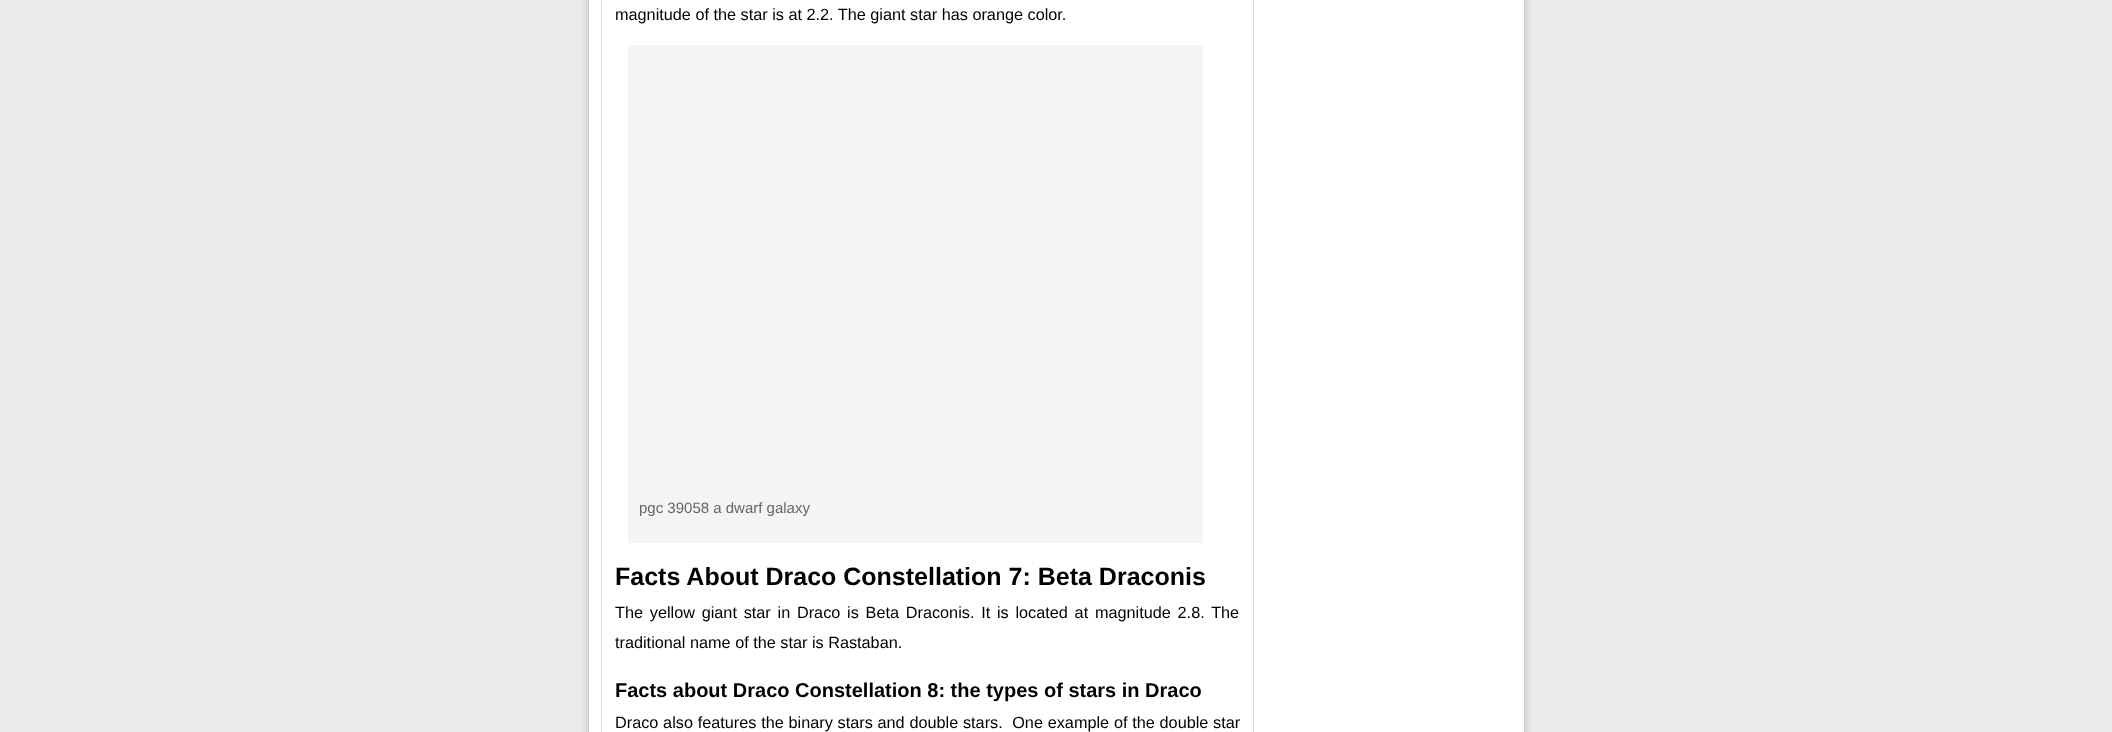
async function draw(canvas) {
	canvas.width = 2112;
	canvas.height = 732;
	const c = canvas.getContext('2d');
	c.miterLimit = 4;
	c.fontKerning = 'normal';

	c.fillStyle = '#ebebeb';
	c.fillRect(0, 0, 2112, 732);
	c.fillStyle = '#6464644d';
	c.filter = 'blur(4px)';
	c.beginPath();
	c.rect(588, -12, 937, 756);
	c.fill();
	c.filter = 'none';
	c.fillStyle = '#fff';
	c.beginPath();
	c.rect(588.5, -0.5, 936, 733);
	c.fill();
	c.strokeStyle = '#ccc';
	c.stroke();
	c.strokeStyle = '#dcdcdc';
	c.strokeRect(601.5, -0.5, 652, 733);
	c.font = '16.25px Liberation Sans';
	c.fillStyle = '#000';
	c.fillText('magnitude of the star is at 2.2. The giant star has orange color.', 615, 20);
	c.fillStyle = '#f4f4f4';
	c.fillRect(628, 45, 575, 498);
	c.font = '15px Liberation Sans';
	c.fillStyle = '#666';
	c.fillText('pgc 39058 a dwarf galaxy', 639, 513);
	c.font = 'bold 25px Liberation Sans';
	c.fillStyle = '#000';
	c.fillText('Facts About Draco Constellation 7: Beta Draconis', 615, 585);
	c.wordSpacing = '2.25px';
	c.font = '16.25px Liberation Sans';
	c.fillText('The yellow giant star in Draco is Beta Draconis. It is located at magnitude 2.8. The', 615, 618);
	c.wordSpacing = '0px';
	c.fillText('traditional name of the star is Rastaban.', 615, 648);
	c.font = 'bold 20px Liberation Sans';
	c.fillText('Facts about Draco Constellation 8: the types of stars in Draco', 615, 697);
	c.wordSpacing = '0.25px';
	c.font = '16.25px Liberation Sans';
	c.fillText('Draco also features the binary stars and double stars.  One example of the double star', 615, 728);
}

draw(document.querySelector('canvas'));
